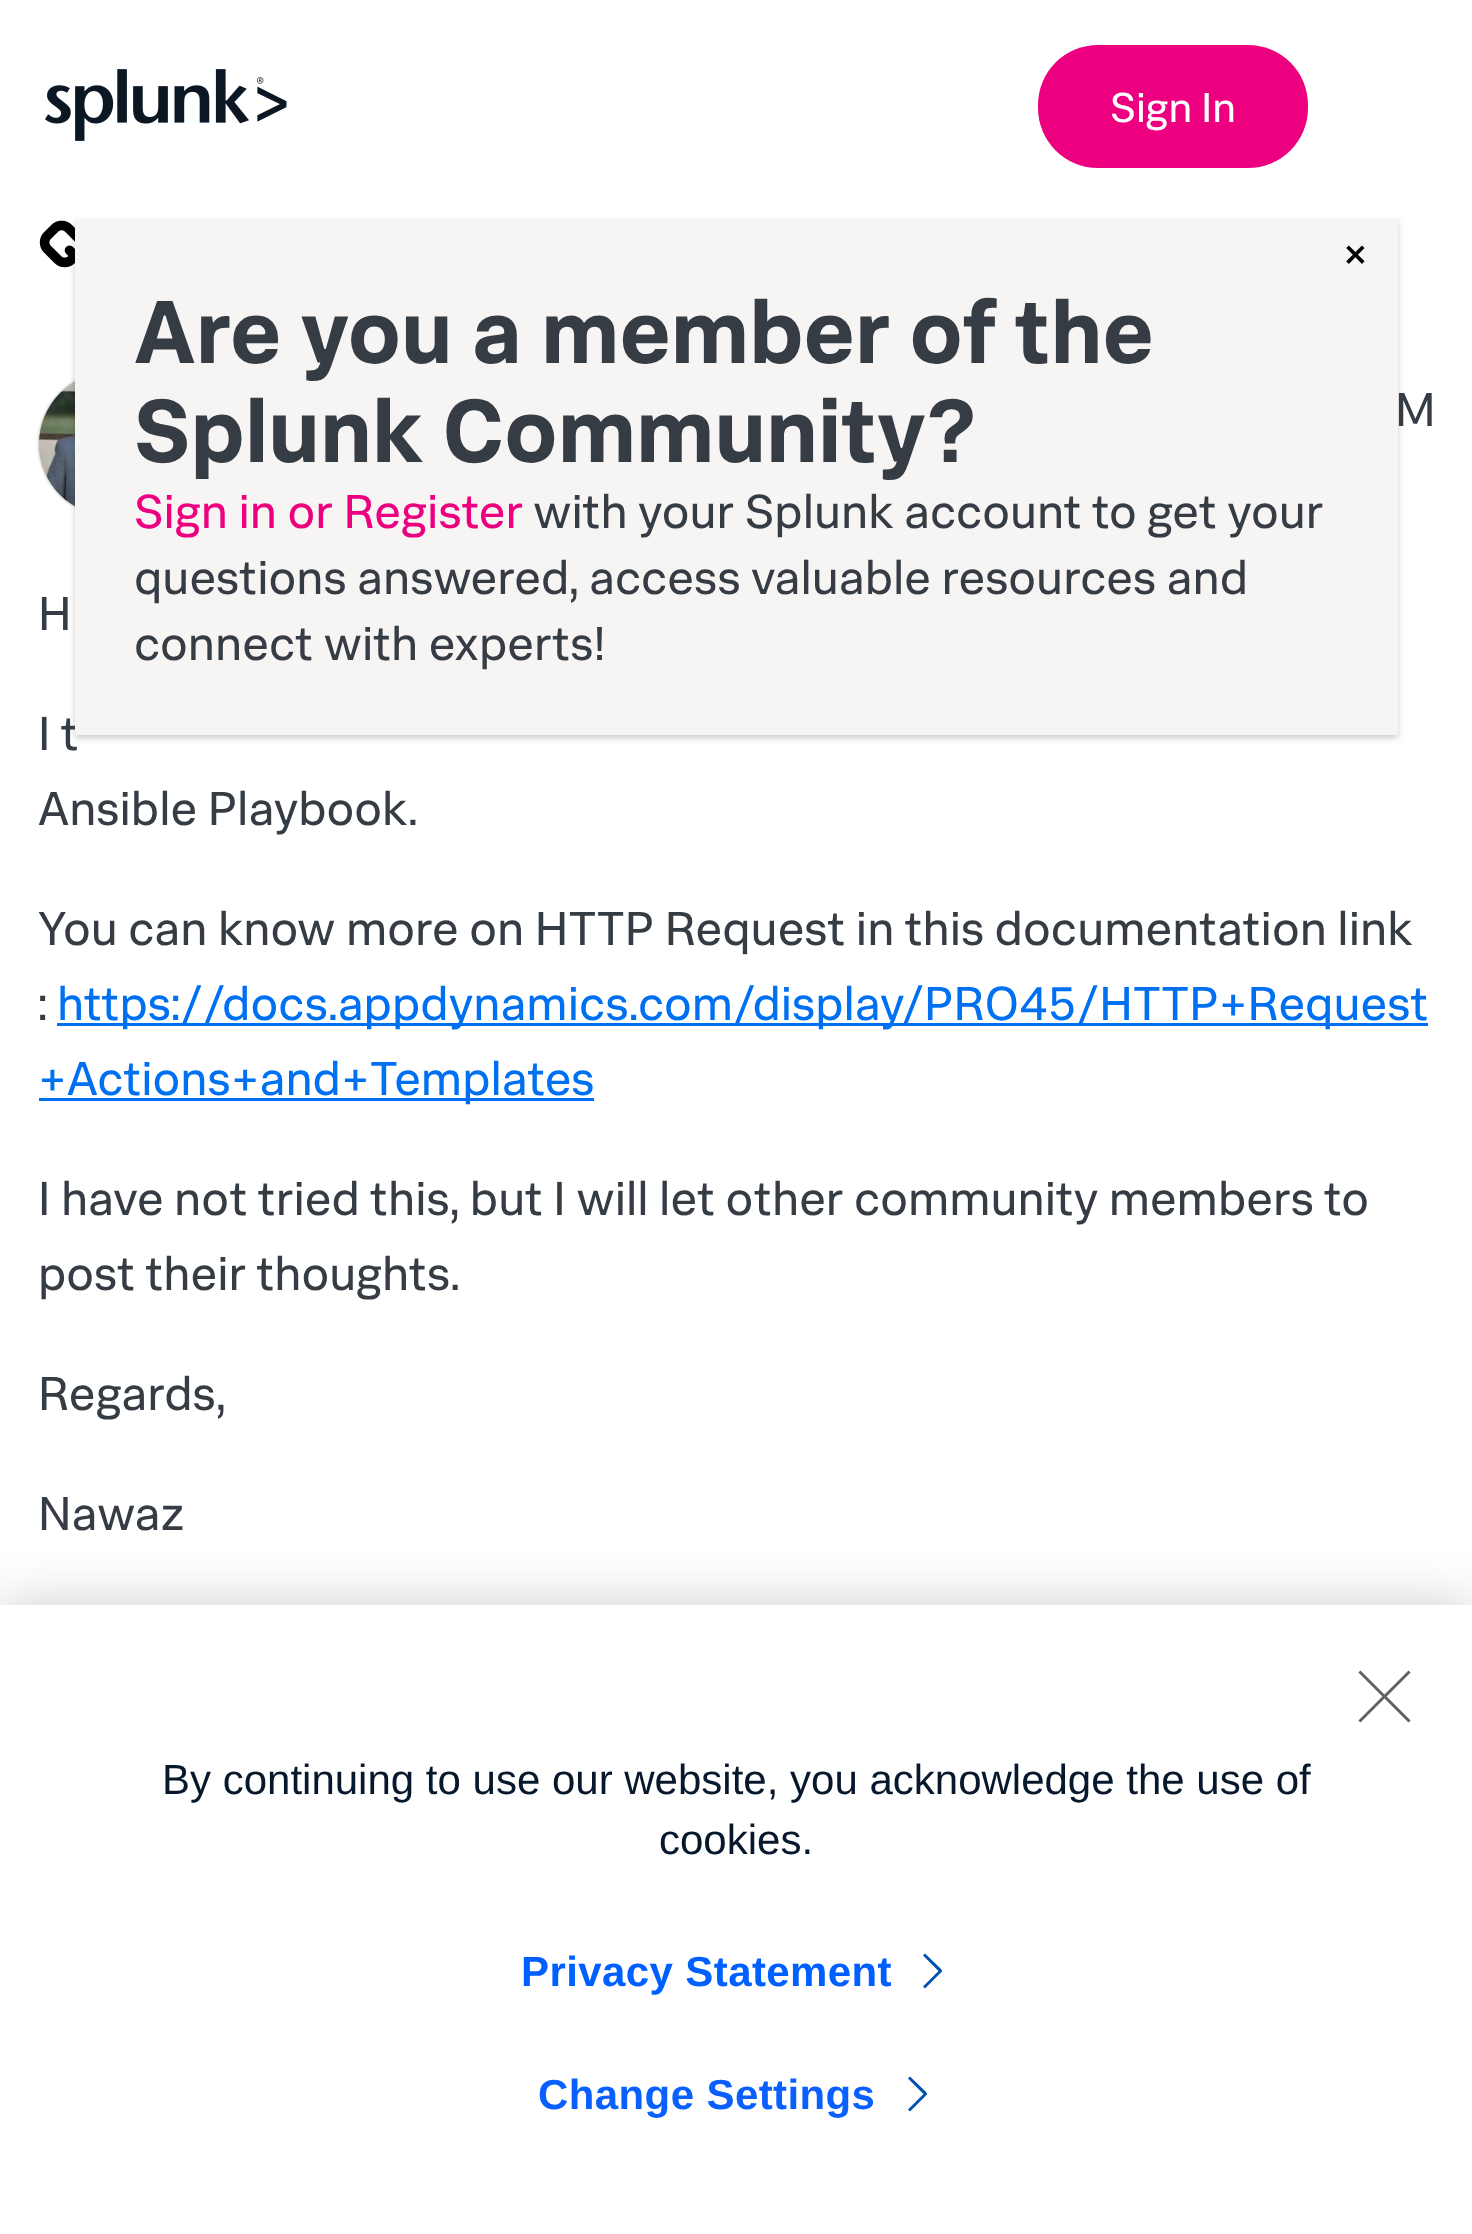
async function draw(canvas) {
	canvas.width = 1472;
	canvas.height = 2234;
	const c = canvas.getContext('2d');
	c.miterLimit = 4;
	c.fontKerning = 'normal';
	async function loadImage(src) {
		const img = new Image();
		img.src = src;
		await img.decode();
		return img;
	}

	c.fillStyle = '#fff';
	c.fillRect(0, 0, 1472, 2234);
	c.drawImage(await loadImage('img1.png'), 45, 69, 242, 72);
	c.fillStyle = '#ed0080';
	c.beginPath();
	c.roundRect(1038, 45, 270, 123, 60);
	c.fill();
	c.font = '42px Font';
	c.fillStyle = '#fff';
	c.fillText('Sign In', 1110, 122);
	c.drawImage(await loadImage('img2.png'), 39, 220, 36, 48);
	c.fillStyle = '#999';
	c.filter = 'blur(1.5px)';
	c.beginPath();
	c.roundRect(39, 372, 144, 144, 72);
	c.fill();
	c.filter = 'none';
	c.drawImage(await loadImage('img3.png'), 39, 381, 36, 125);
	c.fillStyle = '#00000033';
	c.filter = 'blur(3px)';
	c.beginPath();
	c.rect(75, 222, 1323, 516);
	c.fill();
	c.filter = 'none';
	c.font = '48px Font';
	c.fillStyle = '#363c44';
	c.fillText('I t', 38, 750);
	c.fillStyle = '#f7f4f4';
	c.fillRect(75, 219, 1323, 516);
	c.fillStyle = '#000';
	c.fillText('×', 1341, 270);
	c.font = 'bold 90px Font';
	c.fillStyle = '#363c44';
	c.fillText('Are you a member of the', 134, 363);
	c.fillText('Splunk Community?', 134, 462);
	c.font = '48px Font';
	c.fillStyle = '#ed0080';
	c.fillText('Sign in or Register', 134, 528);
	c.fillStyle = '#363c44';
	for (const [text, x, y] of [
		['with your Splunk account to get your', 533, 528],
		['questions answered, access valuable resources and', 134, 594],
		['connect with experts!', 134, 660],
		['M', 1395, 426],
		['H', 38, 630],
		['Ansible Playbook.', 38, 825],
		['You can know more on HTTP Request in this documentation link', 38, 945],
		[':', 38, 1020],
	]) {
		c.fillText(text, x, y);
	}
	c.fillStyle = '#0070f3';
	c.fillRect(57, 1023, 1371, 3);
	c.fillText('https://docs.appdynamics.com/display/PRO45/HTTP+Request', 57, 1020);
	c.fillRect(39, 1098, 555, 3);
	c.fillText('+Actions+and+Templates', 38, 1095);
	c.fillStyle = '#363c44';
	for (const [text, x, y] of [
		['I have not tried this, but I will let other community members to', 38, 1215],
		['post their thoughts.', 38, 1290],
		['Regards,', 38, 1410],
		['Nawaz', 38, 1530],
	]) {
		c.fillText(text, x, y);
	}
	c.fillStyle = '#00000033';
	c.filter = 'blur(27px)';
	c.beginPath();
	c.rect(0, 1605, 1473, 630);
	c.fill();
	c.filter = 'none';
	c.fillStyle = '#fff';
	c.fillRect(0, 1605, 1472, 629);
	c.drawImage(await loadImage('img4.png'), 1358, 1670, 53, 53);
	c.font = '42px Liberation Sans';
	c.fillStyle = '#07182d';
	c.fillText('By continuing to use our website, you acknowledge the use of', 162, 1794);
	c.fillText('cookies.', 659, 1854);
	c.letterSpacing = '0.4px';
	c.font = 'bold 42px Liberation Sans';
	c.fillStyle = '#0060ff';
	c.fillText('Privacy Statement', 521, 1986);
	c.fillStyle = '#0051af';
	c.beginPath();
	c.moveTo(925, 1988.5);
	c.lineTo(923, 1986.5);
	c.lineTo(938.5, 1971);
	c.lineTo(923, 1955.5);
	c.lineTo(925, 1953.5);
	c.lineTo(939, 1967);
	c.bezierCurveTo(939.5, 1967.5, 943.5, 1970.5, 941.5, 1972);
	c.closePath();
	c.fill();
	c.fillStyle = '#0a60ff';
	c.fillText('Change Settings', 538, 2109);
	c.fillStyle = '#0051af';
	c.beginPath();
	c.moveTo(910, 2111.5);
	c.lineTo(908, 2109.5);
	c.lineTo(923.5, 2094);
	c.lineTo(908, 2078.5);
	c.lineTo(910, 2076.5);
	c.lineTo(924, 2090);
	c.bezierCurveTo(924.5, 2090.5, 928.5, 2093.5, 926.5, 2095);
	c.closePath();
	c.fill();
}

draw(document.querySelector('canvas'));
